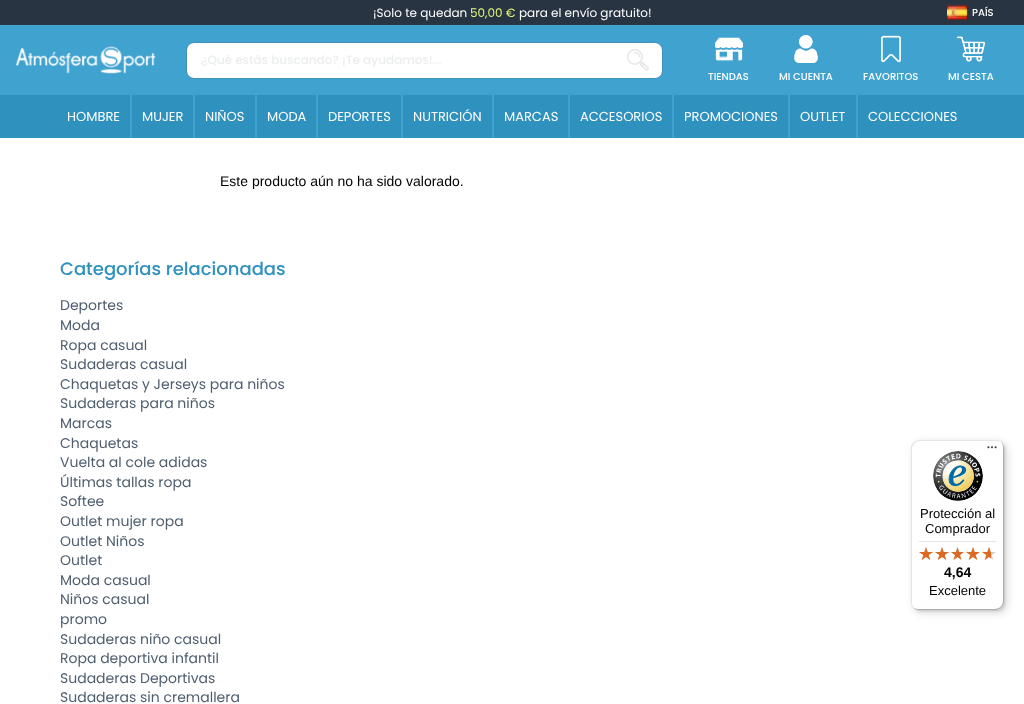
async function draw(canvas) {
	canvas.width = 1024;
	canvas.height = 704;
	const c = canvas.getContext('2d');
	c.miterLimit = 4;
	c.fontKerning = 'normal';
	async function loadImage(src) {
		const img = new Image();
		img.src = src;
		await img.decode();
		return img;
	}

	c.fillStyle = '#fff';
	c.fillRect(0, 0, 1024, 704);
	c.fillStyle = '#40a2cf';
	c.fillRect(0, 25, 1024, 70);
	c.fillStyle = '#283442';
	c.fillRect(0, 0, 1024, 25);
	c.font = '12px Poppins';
	c.fillStyle = '#fff';
	c.fillText('¡Solo te quedan', 373, 17);
	c.fillStyle = '#e0f57a';
	c.fillText('50,00 €', 470, 17);
	c.fillStyle = '#fff';
	c.fillText('para el envío gratuito!', 519, 17);
	c.drawImage(await loadImage('img1.png'), 947, 4, 21, 16);
	c.font = '500 10px Poppins';
	c.fillText('PAÍS', 972, 16);
	c.drawImage(await loadImage('img2.png'), 15, 46, 141, 28);
	c.beginPath();
	c.roundRect(187, 43, 475, 35, 7);
	c.fill();
	c.beginPath();
	c.roundRect(186.5, 42.5, 476, 36, 7.5);
	c.strokeStyle = '#4f5e6f3d';
	c.stroke();
	c.font = '500 12px Poppins';
	c.fillStyle = '#ebedef';
	c.fillText('¿Qué estás buscando? ¡Te ayudamos!...', 201, 64);
	c.drawImage(await loadImage('img3.png'), 627, 49, 22, 22);
	c.drawImage(await loadImage('img4.png'), 715, 37, 28, 25);
	c.font = '500 10px Poppins';
	c.fillStyle = '#fff';
	c.fillText('TIENDAS', 708, 80);
	c.drawImage(await loadImage('img5.png'), 794, 35, 24, 28);
	c.fillText('MI CUENTA', 779, 80);
	c.drawImage(await loadImage('img6.png'), 881, 35, 20, 28);
	c.fillText('FAVORITOS', 863, 80);
	c.drawImage(await loadImage('img7.png'), 957, 36, 28, 26);
	c.fillText('MI CESTA', 948, 80);
	c.fillStyle = '#2e91be';
	c.fillRect(0, 95, 1024, 43);
	c.font = '13px Poppins';
	c.fillStyle = '#fff';
	c.fillText('HOMBRE', 67, 121);
	c.fillStyle = '#40a2cf';
	c.fillRect(130, 95, 2, 43);
	c.fillStyle = '#fff';
	c.fillText('MUJER', 142, 121);
	c.fillStyle = '#40a2cf';
	c.fillRect(193, 95, 2, 43);
	c.fillStyle = '#fff';
	c.fillText('NIÑOS', 205, 121);
	c.fillStyle = '#40a2cf';
	c.fillRect(255, 95, 2, 43);
	c.fillStyle = '#fff';
	c.fillText('MODA', 267, 121);
	c.fillStyle = '#40a2cf';
	c.fillRect(316, 95, 2, 43);
	c.fillStyle = '#fff';
	c.fillText('DEPORTES', 328, 121);
	c.fillStyle = '#40a2cf';
	c.fillRect(401, 95, 2, 43);
	c.fillStyle = '#fff';
	c.fillText('NUTRICIÓN', 413, 121);
	c.fillStyle = '#40a2cf';
	c.fillRect(492, 95, 2, 43);
	c.fillStyle = '#fff';
	c.fillText('MARCAS', 504, 121);
	c.fillStyle = '#40a2cf';
	c.fillRect(568, 95, 2, 43);
	c.fillStyle = '#fff';
	c.fillText('ACCESORIOS', 580, 121);
	c.fillStyle = '#40a2cf';
	c.fillRect(672, 95, 2, 43);
	c.fillStyle = '#fff';
	c.fillText('PROMOCIONES', 684, 121);
	c.fillStyle = '#40a2cf';
	c.fillRect(788, 95, 2, 43);
	c.fillStyle = '#fff';
	c.fillText('OUTLET', 800, 121);
	c.fillStyle = '#40a2cf';
	c.fillRect(856, 95, 2, 43);
	c.fillStyle = '#fff';
	c.fillText('COLECCIONES', 868, 121);
	c.font = '14px Liberation Sans';
	c.fillStyle = '#000';
	c.fillText('Este producto aún no ha sido valorado.', 220, 186);
	c.font = '500 18px Poppins';
	c.fillStyle = '#2e91be';
	c.fillText('Categorías relacionadas', 60, 275);
	c.font = '14px Poppins';
	c.fillStyle = '#4f5e6f';
	for (const [text, x, y] of [
		['Deportes', 60, 310],
		['Moda', 60, 330],
		['Ropa casual', 60, 350],
		['Sudaderas casual', 60, 369],
		['Chaquetas y Jerseys para niños', 60, 389],
		['Sudaderas para niños', 60, 408],
		['Marcas', 60, 428],
		['Chaquetas', 60, 448],
		['Vuelta al cole adidas', 60, 467],
		['Últimas tallas ropa', 60, 487],
		['Softee', 60, 506],
		['Outlet mujer ropa', 60, 526],
		['Outlet Niños', 60, 546],
		['Outlet', 60, 565],
		['Moda casual', 60, 585],
		['Niños casual', 60, 604],
		['promo', 60, 624],
		['Sudaderas niño casual', 60, 644],
		['Ropa deportiva infantil', 60, 663],
		['Sudaderas Deportivas', 60, 683],
		['Sudaderas sin cremallera', 60, 702],
	]) {
		c.fillText(text, x, y);
	}
	c.fillStyle = '#00000026';
	c.filter = 'blur(4px)';
	c.beginPath();
	c.roundRect(914, 443, 93, 170, 8);
	c.fill();
	c.filter = 'none';
	c.filter = 'blur(1px)';
	c.beginPath();
	c.roundRect(912, 441, 93, 170, 8);
	c.fill();
	c.filter = 'none';
	c.fillStyle = '#fff';
	c.beginPath();
	c.roundRect(911, 440, 93, 170, 8);
	c.fill();
	c.fillStyle = '#e5e5e5';
	c.beginPath();
	c.moveTo(920, 441);
	c.lineTo(997, 441);
	c.bezierCurveTo(999, 441, 1001, 442, 1003, 444);
	c.bezierCurveTo(1001, 442, 999, 440, 996, 440);
	c.lineTo(919, 440);
	c.bezierCurveTo(915, 440, 911, 444, 911, 448);
	c.lineTo(911, 602);
	c.bezierCurveTo(911, 605, 913, 607, 915, 609);
	c.bezierCurveTo(913, 607, 912, 605, 912, 603);
	c.lineTo(912, 449);
	c.bezierCurveTo(912, 445, 916, 441, 920, 441);
	c.closePath();
	c.fill();
	c.fillStyle = '#ccc';
	c.beginPath();
	c.moveTo(912, 606);
	c.bezierCurveTo(914, 608, 916, 610, 919, 610);
	c.lineTo(996, 610);
	c.bezierCurveTo(1000, 610, 1004, 606, 1004, 602);
	c.lineTo(1004, 448);
	c.bezierCurveTo(1004, 445, 1002, 443, 1000, 441);
	c.bezierCurveTo(1002, 443, 1003, 445, 1003, 447);
	c.lineTo(1003, 601);
	c.bezierCurveTo(1003, 605, 999, 609, 995, 609);
	c.lineTo(918, 609);
	c.bezierCurveTo(916, 609, 914, 608, 912, 606);
	c.closePath();
	c.fill();
	c.fillStyle = '#32323233';
	c.beginPath();
	c.moveTo(913, 607);
	c.bezierCurveTo(914, 609, 917, 610, 919, 610);
	c.lineTo(996, 610);
	c.bezierCurveTo(1000, 610, 1004, 606, 1004, 602);
	c.lineTo(1004, 448);
	c.bezierCurveTo(1004, 446, 1003, 443, 1001, 442);
	c.bezierCurveTo(1002, 443, 1003, 445, 1003, 447);
	c.lineTo(1003, 601);
	c.bezierCurveTo(1003, 606, 1000, 609, 995, 609);
	c.lineTo(918, 609);
	c.bezierCurveTo(916, 609, 914, 608, 913, 607);
	c.closePath();
	c.fill();
	c.drawImage(await loadImage('img8.png'), 987, 446, 10, 3);
	c.fillStyle = '#ffffff4d';
	c.beginPath();
	c.moveTo(996, 610);
	c.bezierCurveTo(1000.5, 610, 1004, 606.5, 1004, 602);
	c.bezierCurveTo(1004, 606, 1000, 610, 996, 610);
	c.closePath();
	c.fill();
	c.drawImage(await loadImage('img9.png'), 933, 451, 50, 50);
	c.font = '13px Liberation Sans';
	c.fillStyle = '#000';
	c.fillText('Protección al', 920, 518);
	c.fillText('Comprador', 925, 533);
	c.fillStyle = '#e5e5e5';
	c.fillRect(919, 541, 77, 1);
	c.drawImage(await loadImage('img10.png'), 919, 547, 14, 13);
	c.drawImage(await loadImage('img10.png'), 935, 547, 14, 13);
	c.drawImage(await loadImage('img11.png'), 951, 547, 13, 13);
	c.drawImage(await loadImage('img10.png'), 966, 547, 14, 13);
	c.drawImage(await loadImage('img10.png'), 982, 547, 14, 13);
	c.drawImage(await loadImage('img12.png'), 919, 547, 14, 13);
	c.drawImage(await loadImage('img12.png'), 935, 547, 14, 13);
	c.drawImage(await loadImage('img13.png'), 951, 547, 13, 13);
	c.drawImage(await loadImage('img12.png'), 966, 547, 14, 13);
	c.drawImage(await loadImage('img14.png'), 982, 547, 9, 13);
	c.font = 'bold 14px Liberation Sans';
	c.fillStyle = '#000';
	c.fillText('4,64', 944, 577);
	c.font = '13px Liberation Sans';
	c.fillText('Excelente', 929, 595);
}

draw(document.querySelector('canvas'));
